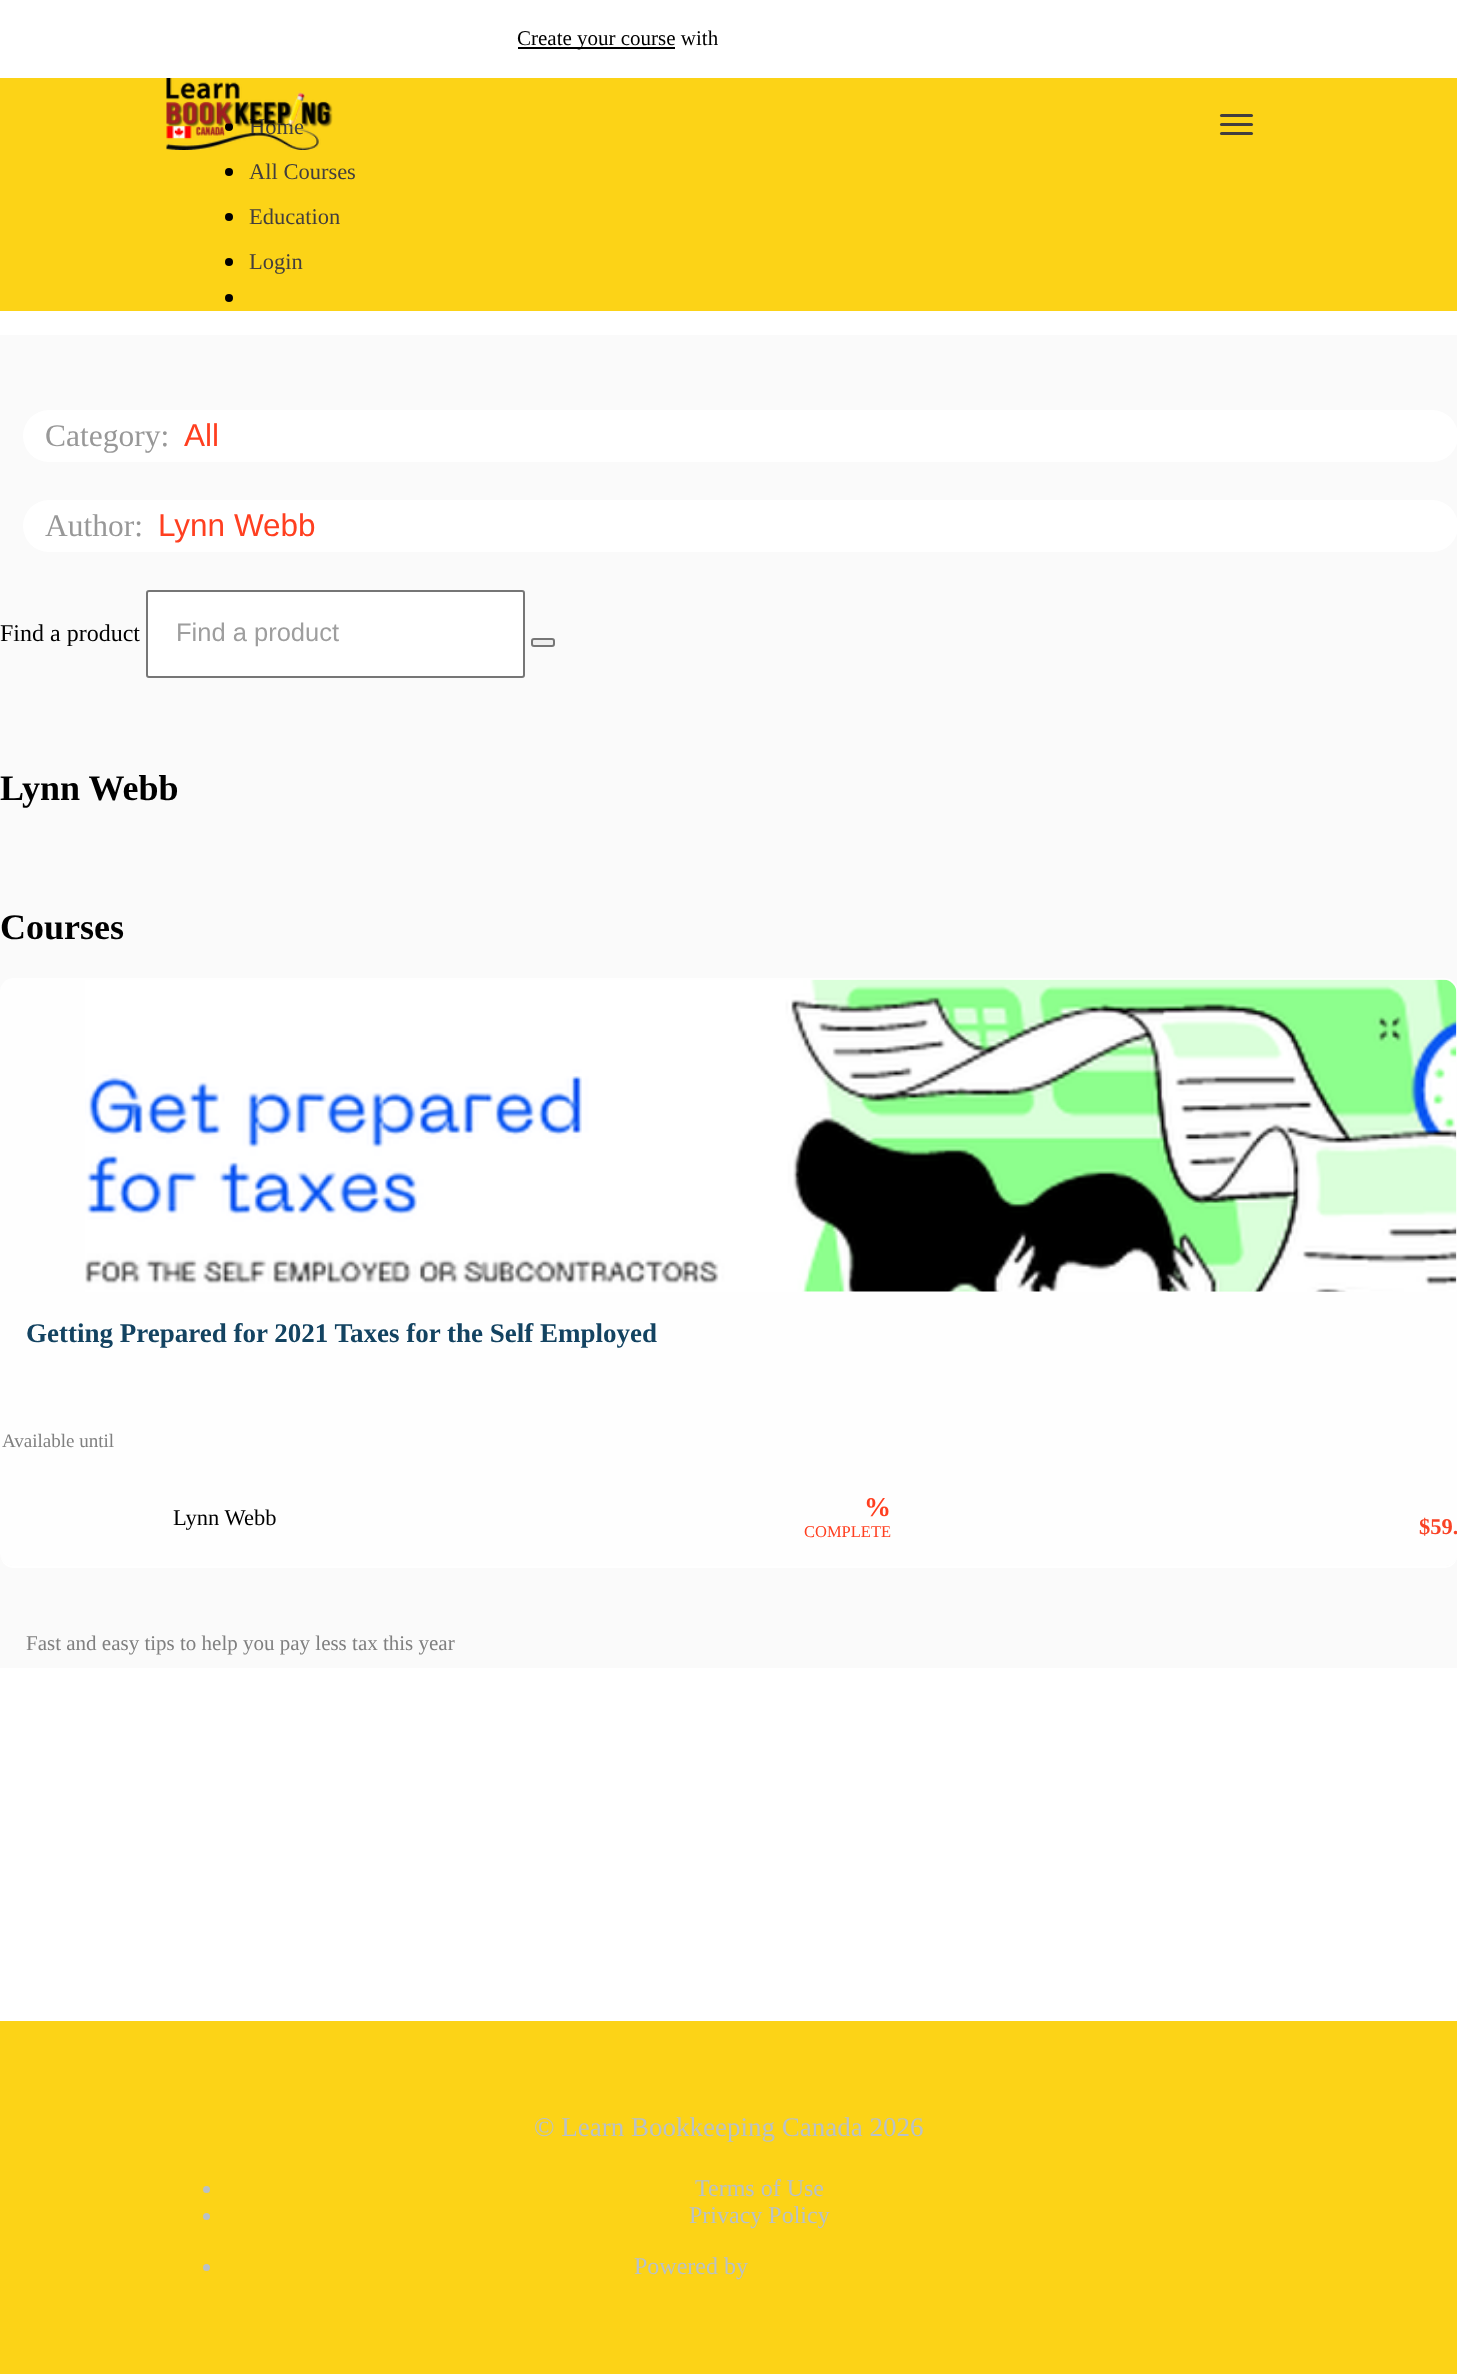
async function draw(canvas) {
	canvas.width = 1457;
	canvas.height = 2374;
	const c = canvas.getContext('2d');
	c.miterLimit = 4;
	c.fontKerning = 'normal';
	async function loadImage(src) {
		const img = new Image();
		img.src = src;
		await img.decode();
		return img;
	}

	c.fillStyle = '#fff';
	c.fillRect(0, 0, 1457, 2374);
	c.fillStyle = '#000';
	c.fillRect(518, 47, 157, 2);
	c.font = '21px Liberation Serif';
	c.fillText('Create your course with', 517, 45);
	c.fillStyle = '#fcd317';
	c.fillRect(0, 78, 1457, 233);
	c.fillStyle = '#000';
	c.beginPath();
	c.arc(229, 127, 4, 0, 2 * Math.PI);
	c.fill();
	c.font = '22.5px Liberation Serif';
	c.fillStyle = '#423e3e';
	c.fillText('Home', 249, 134);
	c.drawImage(await loadImage('img1.png'), 166, 78, 167, 72);
	c.beginPath();
	c.roundRect(1220, 114, 33, 3, 1.5);
	c.fill();
	c.beginPath();
	c.roundRect(1220, 123, 33, 3, 1.5);
	c.fill();
	c.beginPath();
	c.roundRect(1220, 132, 33, 3, 1.5);
	c.fill();
	c.fillStyle = '#000';
	c.beginPath();
	c.arc(229, 172, 4, 0, 2 * Math.PI);
	c.fill();
	c.fillStyle = '#423e3e';
	c.fillText('All Courses', 249, 179);
	c.fillStyle = '#000';
	c.beginPath();
	c.arc(229, 217, 4, 0, 2 * Math.PI);
	c.fill();
	c.fillStyle = '#423e3e';
	c.fillText('Education', 249, 224);
	c.fillStyle = '#000';
	c.beginPath();
	c.arc(229, 262, 4, 0, 2 * Math.PI);
	c.fill();
	c.fillStyle = '#423e3e';
	c.fillText('Login', 249, 269);
	c.fillStyle = '#000';
	c.beginPath();
	c.arc(229, 298, 4, 0, 2 * Math.PI);
	c.fill();
	c.fillStyle = '#fafafa';
	c.fillRect(0, 335, 1457, 1333);
	c.fillStyle = '#fff';
	c.beginPath();
	c.roundRect(23, 410, 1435, 52, 26);
	c.fill();
	c.font = '31.5px Liberation Serif';
	c.fillStyle = '#989898';
	c.fillText('Category:', 45, 446);
	c.font = '31.5px Liberation Sans';
	c.fillStyle = '#ff3f20';
	c.fillText('All', 184, 446);
	c.fillStyle = '#fff';
	c.beginPath();
	c.roundRect(23, 500, 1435, 52, 26);
	c.fill();
	c.font = '31.5px Liberation Serif';
	c.fillStyle = '#989898';
	c.fillText('Author:', 45, 536);
	c.font = '31.5px Liberation Sans';
	c.fillStyle = '#ff3f20';
	c.fillText('Lynn Webb', 158, 536);
	c.font = '24px Liberation Serif';
	c.fillStyle = '#000';
	c.fillText('Find a product', 0, 641);
	c.fillStyle = '#fff';
	c.beginPath();
	c.roundRect(147, 591, 377, 86, 2);
	c.fill();
	c.strokeStyle = '#767676';
	c.lineWidth = 2;
	c.stroke();
	c.font = '25.5px Liberation Sans';
	c.fillStyle = '#9e9e9e';
	c.fillText('Find a product', 176, 641);
	c.fillStyle = '#efefef';
	c.beginPath();
	c.roundRect(532, 639, 22, 7, 2);
	c.fill();
	c.stroke();
	c.font = 'bold 36px Liberation Serif';
	c.fillStyle = '#000';
	c.fillText('Lynn Webb', 0, 800);
	c.fillText('Courses', 0, 939);
	c.fillStyle = '#fff';
	c.beginPath();
	c.moveTo(0, 1552);
	c.bezierCurveTo(0, 1561, 5, 1568, 14, 1568);
	c.lineTo(1444, 1568);
	c.bezierCurveTo(1453, 1568, 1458, 1561, 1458, 1552);
	c.bezierCurveTo(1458, 1560, 1452, 1566, 1444, 1566);
	c.lineTo(14, 1566);
	c.bezierCurveTo(6, 1566, 0, 1560, 0, 1552);
	c.closePath();
	c.fill();
	c.fillStyle = '#fefefe';
	c.beginPath();
	c.roundRect(0, 978, 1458, 588, 14);
	c.fill();
	c.drawImage(await loadImage('img2.png'), 85, 979, 1372, 313);
	c.font = 'bold 27px Liberation Serif';
	c.fillStyle = '#134361';
	c.fillText('Getting Prepared for 2021 Taxes for the Self Employed', 26, 1342);
	c.font = '19px Liberation Serif';
	c.fillStyle = '#808080';
	c.fillText('Available until', 2, 1447);
	c.font = '21px Liberation Serif';
	c.fillText('Fast and easy tips to help you pay less tax this year', 26, 1650);
	c.font = '22.5px Liberation Serif';
	c.fillStyle = '#000';
	c.fillText('Lynn Webb', 173, 1525);
	c.font = 'bold 27px Liberation Serif';
	c.fillStyle = '#ff3f20';
	c.fillText('%', 864, 1516);
	c.font = '16.5px Liberation Serif';
	c.fillText('COMPLETE', 804, 1537);
	c.font = 'bold 22.5px Liberation Serif';
	c.fillStyle = '#f94326';
	c.fillText('$59.', 1419, 1534);
	c.fillStyle = '#fcd317';
	c.fillRect(0, 2021, 1457, 353);
	c.font = '27px Liberation Serif';
	c.fillStyle = '#bac1c7';
	c.fillText('© Learn Bookkeeping Canada 2026', 534, 2136);
	c.beginPath();
	c.arc(206.5, 2189.5, 3.5, 0, 2 * Math.PI);
	c.fill();
	c.font = '24px Liberation Serif';
	c.fillText('Terms of Use', 695, 2196);
	c.beginPath();
	c.arc(206.5, 2216.5, 3.5, 0, 2 * Math.PI);
	c.fill();
	c.fillText('Privacy Policy', 689, 2223);
	c.beginPath();
	c.arc(206.5, 2267.5, 3.5, 0, 2 * Math.PI);
	c.fill();
	c.fillText('Powered by', 634, 2274);
}

draw(document.querySelector('canvas'));
